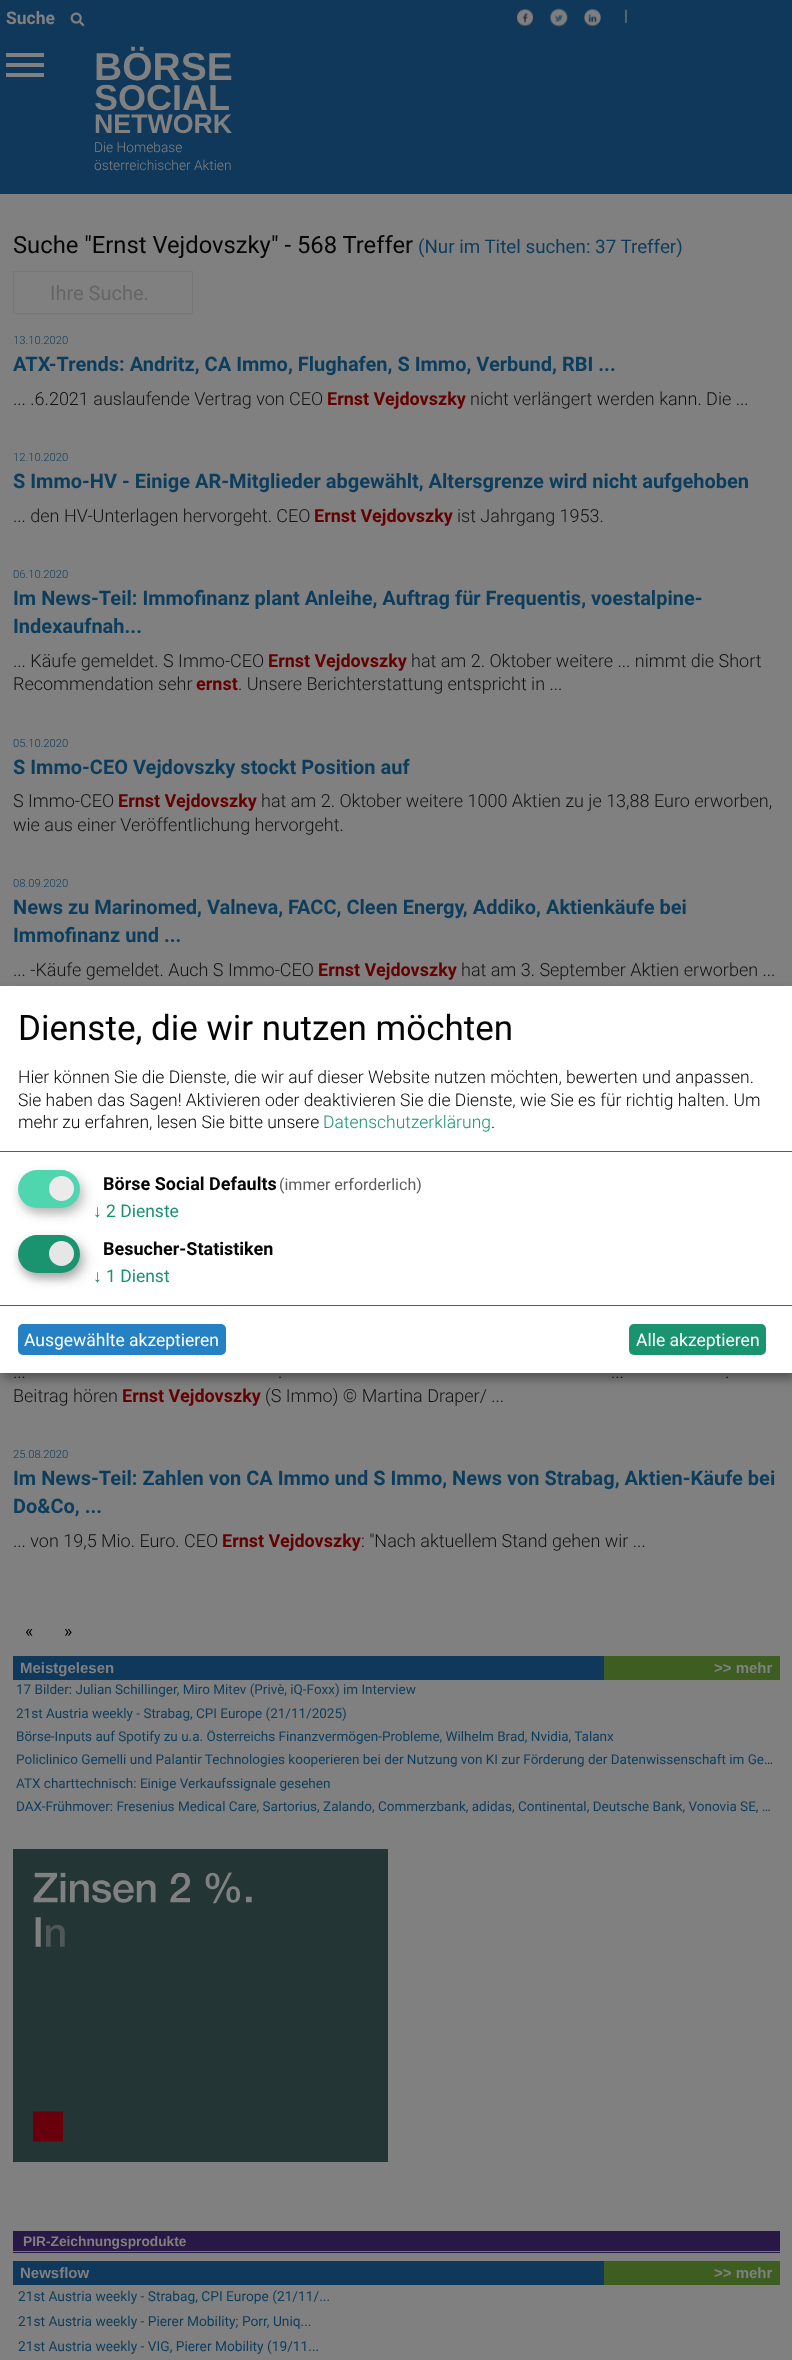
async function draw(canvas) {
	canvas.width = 792;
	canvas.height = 2360;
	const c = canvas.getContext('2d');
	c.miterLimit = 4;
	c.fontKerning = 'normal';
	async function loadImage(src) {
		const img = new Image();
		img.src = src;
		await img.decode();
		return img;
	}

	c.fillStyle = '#808080';
	c.fillRect(0, 0, 792, 2360);
	c.fillStyle = '#0f385b';
	c.fillRect(0, 0, 792, 194);
	c.font = 'bold 17.5px Roboto';
	c.fillStyle = '#808080';
	c.fillText('Suche', 6, 24);
	c.drawImage(await loadImage('img1.png'), 70, 12, 15, 15);
	c.drawImage(await loadImage('img2.png'), 516, 8, 18, 19);
	c.drawImage(await loadImage('img3.png'), 550, 8, 18, 19);
	c.drawImage(await loadImage('img4.png'), 583, 8, 19, 19);
	c.font = '16px Roboto';
	c.fillText('|', 624, 21);
	for (const [x, y, w, h, color] of [
		[6, 73, 38, 4, '#808080'],
		[6, 63, 38, 4, '#808080'],
		[6, 53, 38, 4, '#808080'],
	]) {
		c.fillStyle = color;
		c.fillRect(x, y, w, h);
	}
	c.font = 'bold 39px Arimo';
	c.fillText('BÖRSE', 94, 80);
	c.font = 'bold 36px Arimo';
	c.fillText('SOCIAL', 94, 110);
	c.font = 'bold 26.75px Arimo';
	c.fillText('NETWORK', 94, 133);
	c.font = '300 13.75px Roboto';
	c.fillText('Die Homebase', 94, 152);
	c.fillText('österreichischer Aktien', 94, 170);
	c.font = '23.75px Roboto';
	c.fillStyle = '#050505';
	c.fillText('Suche "Ernst Vejdovszky" - 568 Treffer', 13, 253);
	c.font = '18.75px Roboto';
	c.fillStyle = '#0c3d5d';
	c.fillText('(Nur im Titel suchen: 37 Treffer)', 418, 253);
	c.strokeStyle = '#777';
	c.strokeRect(13.5, 271.5, 179, 42);
	c.font = '20px Roboto';
	c.fillStyle = '#656565';
	c.fillText('Ihre Suche.', 50, 300);
	c.font = '300 11.25px Roboto';
	c.fillStyle = '#0c3d5d';
	c.fillText('13.10.2020', 13, 344);
	c.font = 'bold 20px Roboto';
	c.fillText('ATX-Trends: Andritz, CA Immo, Flughafen, S Immo, Verbund, RBI ...', 13, 371);
	c.font = '300 18px Roboto';
	c.fillStyle = '#111';
	c.fillText('... .6.2021 auslaufende Vertrag von CEO', 13, 405);
	c.font = 'bold 18px Roboto';
	c.fillStyle = '#650000';
	c.fillText('Ernst Vejdovszky', 327, 405);
	c.font = '300 18px Roboto';
	c.fillStyle = '#111';
	c.fillText('nicht verlängert werden kann. Die ...', 470, 405);
	c.font = '300 11.25px Roboto';
	c.fillStyle = '#0c3d5d';
	c.fillText('12.10.2020', 13, 461);
	c.font = 'bold 20px Roboto';
	c.fillText('S Immo-HV - Einige AR-Mitglieder abgewählt, Altersgrenze wird nicht aufgehoben', 13, 488);
	c.font = '300 18px Roboto';
	c.fillStyle = '#111';
	c.fillText('... den HV-Unterlagen hervorgeht. CEO', 13, 522);
	c.font = 'bold 18px Roboto';
	c.fillStyle = '#650000';
	c.fillText('Ernst Vejdovszky', 314, 522);
	c.font = '300 18px Roboto';
	c.fillStyle = '#111';
	c.fillText('ist Jahrgang 1953.', 457, 522);
	c.font = '300 11.25px Roboto';
	c.fillStyle = '#0c3d5d';
	c.fillText('06.10.2020', 13, 578);
	c.font = 'bold 20px Roboto';
	c.fillText('Im News-Teil: Immofinanz plant Anleihe, Auftrag für Frequentis, voestalpine-', 13, 605);
	c.fillText('Indexaufnah...', 13, 633);
	c.font = '300 18px Roboto';
	c.fillStyle = '#111';
	c.fillText('... Käufe gemeldet. S Immo-CEO', 13, 667);
	c.font = 'bold 18px Roboto';
	c.fillStyle = '#650000';
	c.fillText('Ernst Vejdovszky', 268, 667);
	c.font = '300 18px Roboto';
	c.fillStyle = '#111';
	c.fillText('hat am 2. Oktober weitere ... nimmt die Short', 411, 667);
	c.fillText('Recommendation sehr', 13, 690);
	c.font = 'bold 18px Roboto';
	c.fillStyle = '#650000';
	c.fillText('ernst', 196, 690);
	c.font = '300 18px Roboto';
	c.fillStyle = '#111';
	c.fillText('. Unsere Berichterstattung entspricht in ...', 238, 690);
	c.font = '300 11.25px Roboto';
	c.fillStyle = '#0c3d5d';
	c.fillText('05.10.2020', 13, 747);
	c.font = 'bold 20px Roboto';
	c.fillText('S Immo-CEO Vejdovszky stockt Position auf', 13, 774);
	c.font = '300 18px Roboto';
	c.fillStyle = '#111';
	c.fillText('S Immo-CEO', 13, 807);
	c.font = 'bold 18px Roboto';
	c.fillStyle = '#650000';
	c.fillText('Ernst Vejdovszky', 118, 807);
	c.font = '300 18px Roboto';
	c.fillStyle = '#111';
	c.fillText('hat am 2. Oktober weitere 1000 Aktien zu je 13,88 Euro erworben,', 261, 807);
	c.fillText('wie aus einer Veröffentlichung hervorgeht.', 13, 831);
	c.font = '300 11.25px Roboto';
	c.fillStyle = '#0c3d5d';
	c.fillText('08.09.2020', 13, 887);
	c.font = 'bold 20px Roboto';
	c.fillText('News zu Marinomed, Valneva, FACC, Cleen Energy, Addiko, Aktienkäufe bei', 13, 914);
	c.fillText('Immofinanz und ...', 13, 942);
	c.font = '300 18px Roboto';
	c.fillStyle = '#111';
	c.fillText('... -Käufe gemeldet. Auch S Immo-CEO', 13, 976);
	c.font = 'bold 18px Roboto';
	c.fillStyle = '#650000';
	c.fillText('Ernst Vejdovszky', 318, 976);
	c.font = '300 18px Roboto';
	c.fillStyle = '#111';
	for (const [text, x, y] of [
		['hat am 3. September Aktien erworben ...', 461, 976],
		['...', 13, 1378],
		['.', 278, 1378],
		['...', 611, 1378],
		['.', 725, 1378],
		['Beitrag hören', 13, 1402],
	]) {
		c.fillText(text, x, y);
	}
	c.font = 'bold 18px Roboto';
	c.fillStyle = '#650000';
	c.fillText('Ernst Vejdovszky', 122, 1402);
	c.font = '300 18px Roboto';
	c.fillStyle = '#111';
	c.fillText('(S Immo) © Martina Draper/ ...', 265, 1402);
	c.font = '300 11.25px Roboto';
	c.fillStyle = '#0c3d5d';
	c.fillText('25.08.2020', 13, 1458);
	c.font = 'bold 20px Roboto';
	c.fillText('Im News-Teil: Zahlen von CA Immo und S Immo, News von Strabag, Aktien-Käufe bei', 13, 1485);
	c.fillText('Do&Co, ...', 13, 1513);
	c.font = '300 18px Roboto';
	c.fillStyle = '#111';
	c.fillText('... von 19,5 Mio. Euro. CEO', 13, 1547);
	c.font = 'bold 18px Roboto';
	c.fillStyle = '#650000';
	c.fillText('Ernst Vejdovszky', 222, 1547);
	c.font = '300 18px Roboto';
	c.fillStyle = '#111';
	c.fillText(': "Nach aktuellem Stand gehen wir ...', 361, 1547);
	c.font = '17.5px Roboto';
	c.fillStyle = '#050505';
	c.fillText('«', 25, 1637);
	c.fillText('»', 64, 1637);
	c.fillStyle = '#0f385b';
	c.fillRect(13, 1656, 591, 24);
	c.font = 'bold 15px Arimo';
	c.fillStyle = '#808080';
	c.fillText('Meistgelesen', 20, 1673);
	c.fillStyle = '#3e5d21';
	c.fillRect(604, 1656, 176, 24);
	c.fillStyle = '#808080';
	c.fillText('>> mehr', 714, 1673);
	c.font = '13.5px Roboto';
	c.fillStyle = '#0c3d5d';
	c.fillText('17 Bilder: Julian Schillinger, Miro Mitev (Privè, iQ-Foxx) im Interview', 16, 1694);
	c.fillText('21st Austria weekly - Strabag, CPI Europe (21/11/2025)', 16, 1718);
	c.save();
	c.beginPath();
	c.rect(16, 1730, 760, 16);
	c.clip();
	c.fillText('Börse-Inputs auf Spotify zu u.a. Österreichs Finanzvermögen-Probleme, Wilhelm Brad, Nvidia, Talanx', 16, 1741);
	c.restore();
	c.save();
	c.beginPath();
	c.rect(16, 1754, 760, 16);
	c.clip();
	c.fillText('Policlinico Gemelli und Palantir Technologies kooperieren bei der Nutzung von KI zur Förderung der Datenwissenschaft im Ge…', 16, 1764);
	c.restore();
	c.fillText('ATX charttechnisch: Einige Verkaufssignale gesehen', 16, 1788);
	c.fillText('DAX-Frühmover: Fresenius Medical Care, Sartorius, Zalando, Commerzbank, adidas, Continental, Deutsche Bank, Vonovia SE, …', 16, 1811);
	c.drawImage(await loadImage('img5.png'), 13, 1849, 375, 313);
	c.fillStyle = '#271845';
	c.fillRect(13, 2231, 767, 22);
	c.font = 'bold 13.75px Arimo';
	c.fillStyle = '#808080';
	c.fillText('PIR-Zeichnungsprodukte', 23, 2246);
	c.fillStyle = '#797979';
	c.fillRect(13, 2251, 768, 1);
	c.fillStyle = '#0f385b';
	c.fillRect(13, 2261, 591, 24);
	c.font = 'bold 15px Arimo';
	c.fillStyle = '#808080';
	c.fillText('Newsflow', 20, 2278);
	c.fillStyle = '#3e5d21';
	c.fillRect(604, 2261, 176, 24);
	c.fillStyle = '#808080';
	c.fillText('>> mehr', 714, 2278);
	c.font = '13.75px Roboto';
	c.fillStyle = '#0c3d5d';
	for (const [text, x, y] of [
		['21st Austria weekly - Strabag, CPI Europe (21/11/...', 18, 2301],
		['21st Austria weekly - Pierer Mobility; Porr, Uniq...', 18, 2326],
		['21st Austria weekly - VIG, Pierer Mobility (19/11...', 18, 2351],
	]) {
		c.fillText(text, x, y);
	}
	c.fillStyle = '#00000030';
	c.filter = 'blur(6px)';
	c.beginPath();
	c.rect(6, 993, 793, 386);
	c.fill();
	c.filter = 'none';
	c.fillStyle = '#00000033';
	c.filter = 'blur(4px)';
	c.beginPath();
	c.rect(0, 991, 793, 387);
	c.fill();
	c.filter = 'none';
	c.fillStyle = '#fff';
	c.fillRect(0, 986, 792, 387);
	c.fillStyle = '#5c5c5c';
	c.fillRect(0, 1151, 792, 1);
	c.font = '35px Roboto';
	c.fillStyle = '#050505';
	c.fillText('Dienste, die wir nutzen möchten', 18, 1040);
	c.font = '300 17.5px Roboto';
	for (const [text, x, y] of [
		['Hier können Sie die Dienste, die wir auf dieser Website nutzen möchten, bewerten und anpassen.', 18, 1083],
		['Sie haben das Sagen! Aktivieren oder deaktivieren Sie die Dienste, wie Sie es für richtig halten. Um', 18, 1106],
		['mehr zu erfahren, lesen Sie bitte unsere', 18, 1128],
	]) {
		c.fillText(text, x, y);
	}
	c.fillStyle = '#1a936f';
	c.fillText('Datenschutzerklärung', 323, 1128);
	c.fillStyle = '#050505';
	c.fillText('.', 491, 1128);
	c.fillStyle = '#33333330';
	c.filter = 'blur(6px)';
	c.beginPath();
	c.roundRect(24, 1176, 62, 38, 19);
	c.fill();
	c.filter = 'none';
	c.fillStyle = '#33333333';
	c.filter = 'blur(4px)';
	c.beginPath();
	c.roundRect(18, 1175, 62, 38, 19);
	c.fill();
	c.filter = 'none';
	c.fillStyle = '#50d6ae';
	c.beginPath();
	c.roundRect(18, 1170, 62, 38, 19);
	c.fill();
	c.fillStyle = '#ebebeb';
	c.beginPath();
	c.arc(61.5, 1188.5, 12.5, 0, 2 * Math.PI);
	c.fill();
	c.font = 'bold 18px Roboto';
	c.fillStyle = '#050505';
	c.fillText('Börse Social Defaults', 103, 1190);
	c.font = '16px Roboto';
	c.fillStyle = '#5c5c5c';
	c.fillText('(immer erforderlich)', 279, 1190);
	c.font = '17.5px Liberation Sans';
	c.fillStyle = '#1a936f';
	c.fillText('↓', 93, 1217);
	c.font = '17.5px Roboto';
	c.fillText('2 Dienste', 106, 1217);
	c.fillStyle = '#00000030';
	c.filter = 'blur(6px)';
	c.beginPath();
	c.roundRect(24, 1241, 62, 38, 19);
	c.fill();
	c.filter = 'none';
	c.fillStyle = '#00000033';
	c.filter = 'blur(4px)';
	c.beginPath();
	c.roundRect(18, 1240, 62, 38, 19);
	c.fill();
	c.filter = 'none';
	c.fillStyle = '#1a936f';
	c.beginPath();
	c.roundRect(18, 1235, 62, 38, 19);
	c.fill();
	c.fillStyle = '#e6e6e6';
	c.beginPath();
	c.arc(61.5, 1253.5, 12.5, 0, 2 * Math.PI);
	c.fill();
	c.font = 'bold 18px Roboto';
	c.fillStyle = '#050505';
	c.fillText('Besucher-Statistiken', 103, 1255);
	c.font = '17.5px Liberation Sans';
	c.fillStyle = '#1a936f';
	c.fillText('↓', 93, 1282);
	c.font = '17.5px Roboto';
	c.fillText('1 Dienst', 106, 1282);
	c.fillStyle = '#5c5c5c';
	c.fillRect(0, 1305, 792, 1);
	c.fillStyle = '#2581c4';
	c.beginPath();
	c.roundRect(18, 1324, 208, 31, 5);
	c.fill();
	c.fillStyle = '#fff';
	c.fillText('Ausgewählte akzeptieren', 24, 1346);
	c.fillStyle = '#1a936f';
	c.beginPath();
	c.roundRect(629, 1324, 137, 31, 5);
	c.fill();
	c.fillStyle = '#fff';
	c.fillText('Alle akzeptieren', 636, 1346);
}

draw(document.querySelector('canvas'));
